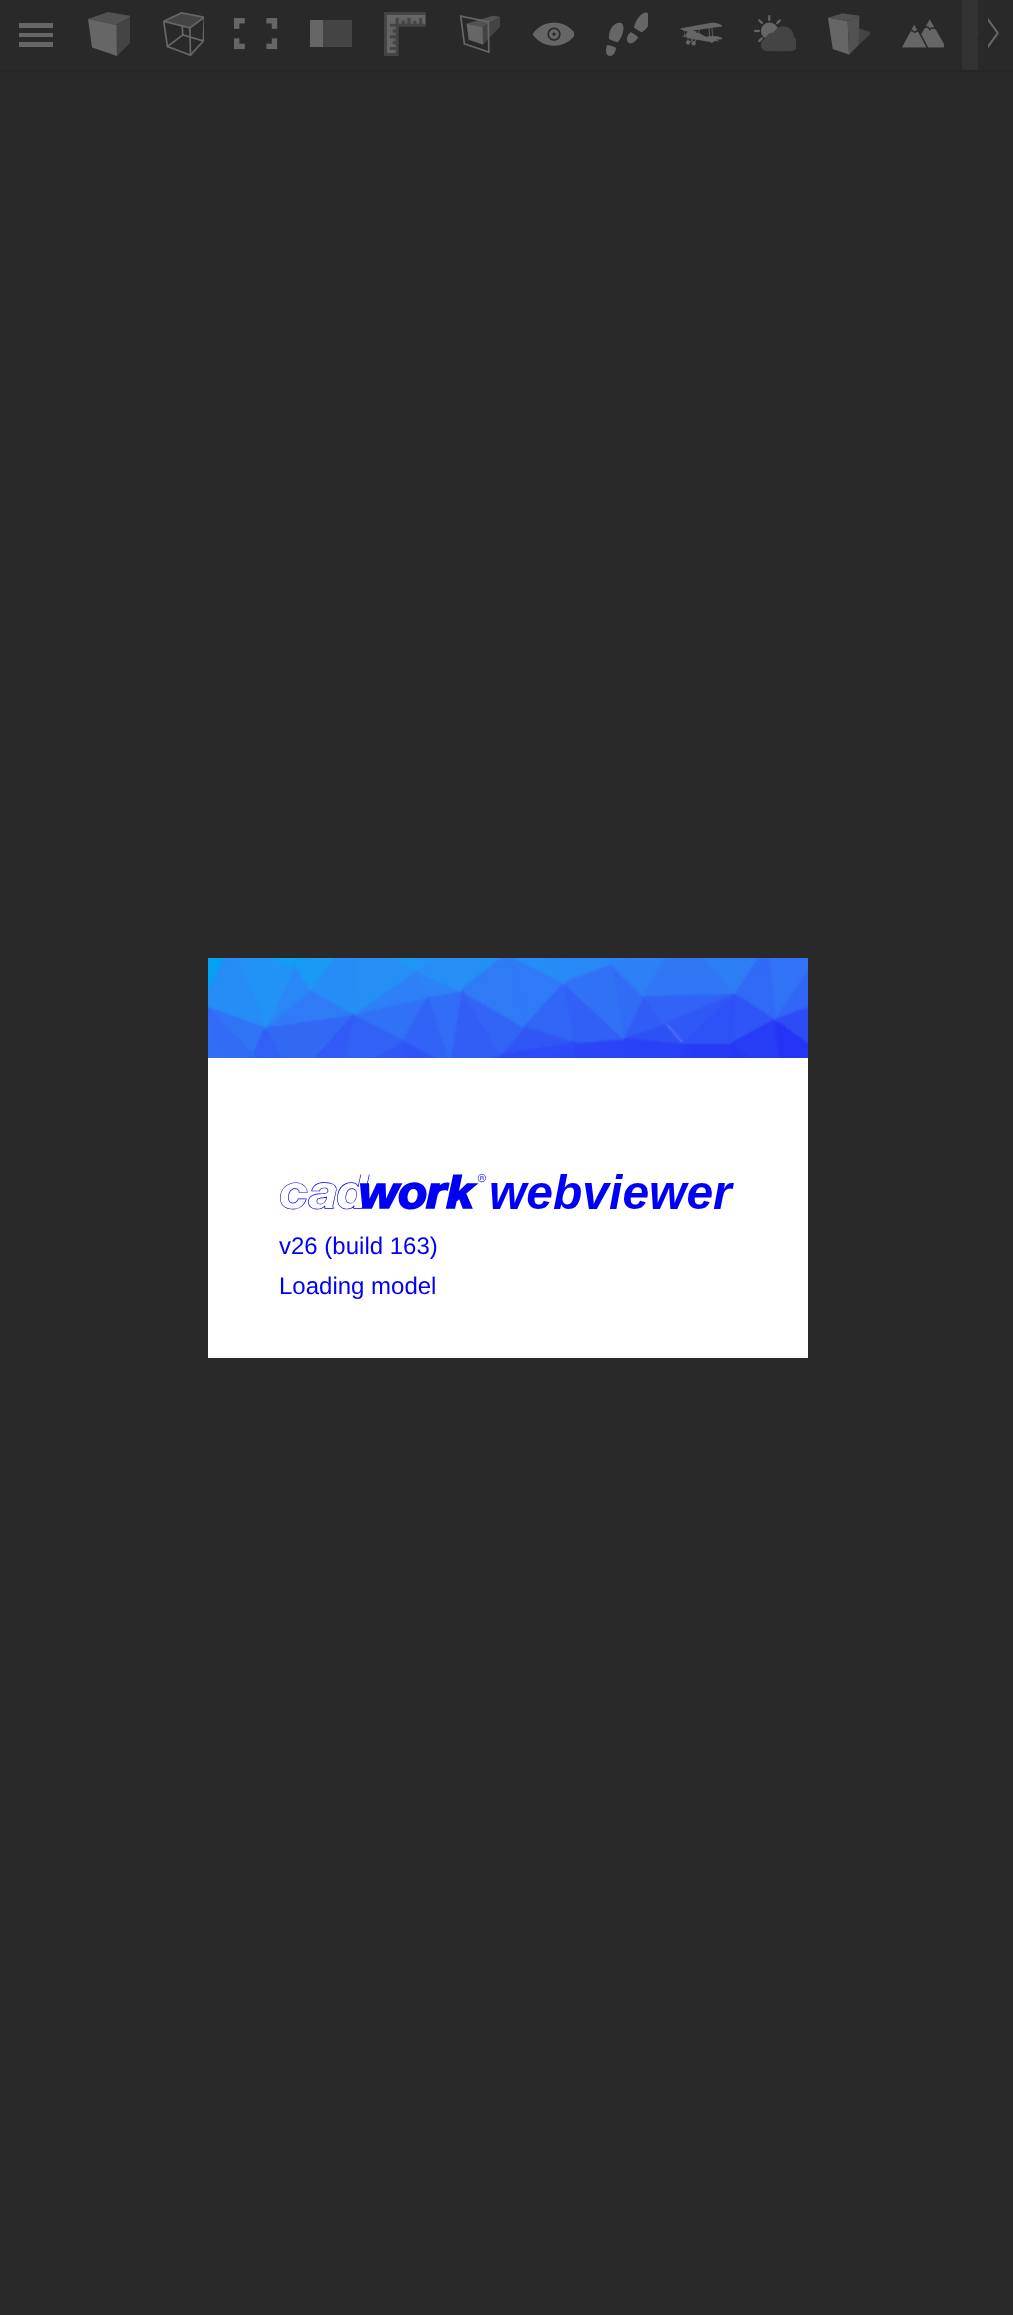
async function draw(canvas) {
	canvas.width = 1013;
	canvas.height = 2315;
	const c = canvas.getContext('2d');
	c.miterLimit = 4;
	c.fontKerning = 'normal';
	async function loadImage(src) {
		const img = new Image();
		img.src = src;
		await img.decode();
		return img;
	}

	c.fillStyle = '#292929';
	c.fillRect(0, 0, 1013, 2315);
	c.fillStyle = '#252525';
	c.fillRect(0, 70, 1013, 2);
	c.save();
	c.beginPath();
	c.rect(88, 12, 42, 44);
	c.clip();
	c.fillStyle = '#525252';
	c.beginPath();
	c.moveTo(88, 19);
	c.lineTo(116, 25);
	c.lineTo(132, 16);
	c.lineTo(108, 12);
	c.closePath();
	c.fill();
	c.fillStyle = '#444';
	c.beginPath();
	c.moveTo(132, 16);
	c.lineTo(131, 42);
	c.lineTo(117, 56);
	c.lineTo(116, 25);
	c.closePath();
	c.fill();
	c.restore();
	c.fillStyle = '#666';
	c.beginPath();
	c.moveTo(117, 56);
	c.lineTo(116.5, 25);
	c.lineTo(88, 19);
	c.lineTo(92, 47.5);
	c.closePath();
	c.fill();
	c.drawImage(await loadImage('img1.png'), 162, 12, 42, 44);
	c.drawImage(await loadImage('img2.png'), 234, 18, 44, 32);
	c.fillRect(310, 20, 13, 27);
	c.fillStyle = '#444';
	c.fillRect(323, 20, 29, 27);
	c.drawImage(await loadImage('img3.png'), 384, 12, 42, 44);
	c.drawImage(await loadImage('img4.png'), 459, 15, 41, 39);
	c.drawImage(await loadImage('img5.png'), 532, 22, 42, 24);
	c.drawImage(await loadImage('img6.png'), 606, 12, 42, 44);
	c.drawImage(await loadImage('img7.png'), 680, 22, 42, 24);
	c.drawImage(await loadImage('img8.png'), 754, 15, 42, 37);
	c.drawImage(await loadImage('img9.png'), 828, 13, 42, 42);
	c.drawImage(await loadImage('img10.png'), 902, 19, 42, 29);
	c.fillStyle = '#323232';
	c.fillRect(962, 0, 16, 70);
	c.drawImage(await loadImage('img11.png'), 976, 32, 2, 2);
	for (const [x, y, w, h, color] of [
		[19, 23, 34, 5, '#666'],
		[19, 33, 34, 4, '#666'],
		[19, 42, 34, 5, '#666'],
	]) {
		c.fillStyle = color;
		c.fillRect(x, y, w, h);
	}
	c.drawImage(await loadImage('img12.png'), 988, 17, 11, 32);
	c.fillStyle = '#fff';
	c.fillRect(208, 958, 600, 400);
	c.drawImage(await loadImage('img13.png'), 208, 958, 600, 100);
	c.drawImage(await loadImage('img14.png'), 280, 1174, 454, 36);
	c.font = '24px Liberation Sans';
	c.fillStyle = '#0000f6';
	c.fillText('v26 (build 163)', 279, 1254);
	c.fillText('Loading model', 279, 1294);
}

draw(document.querySelector('canvas'));
